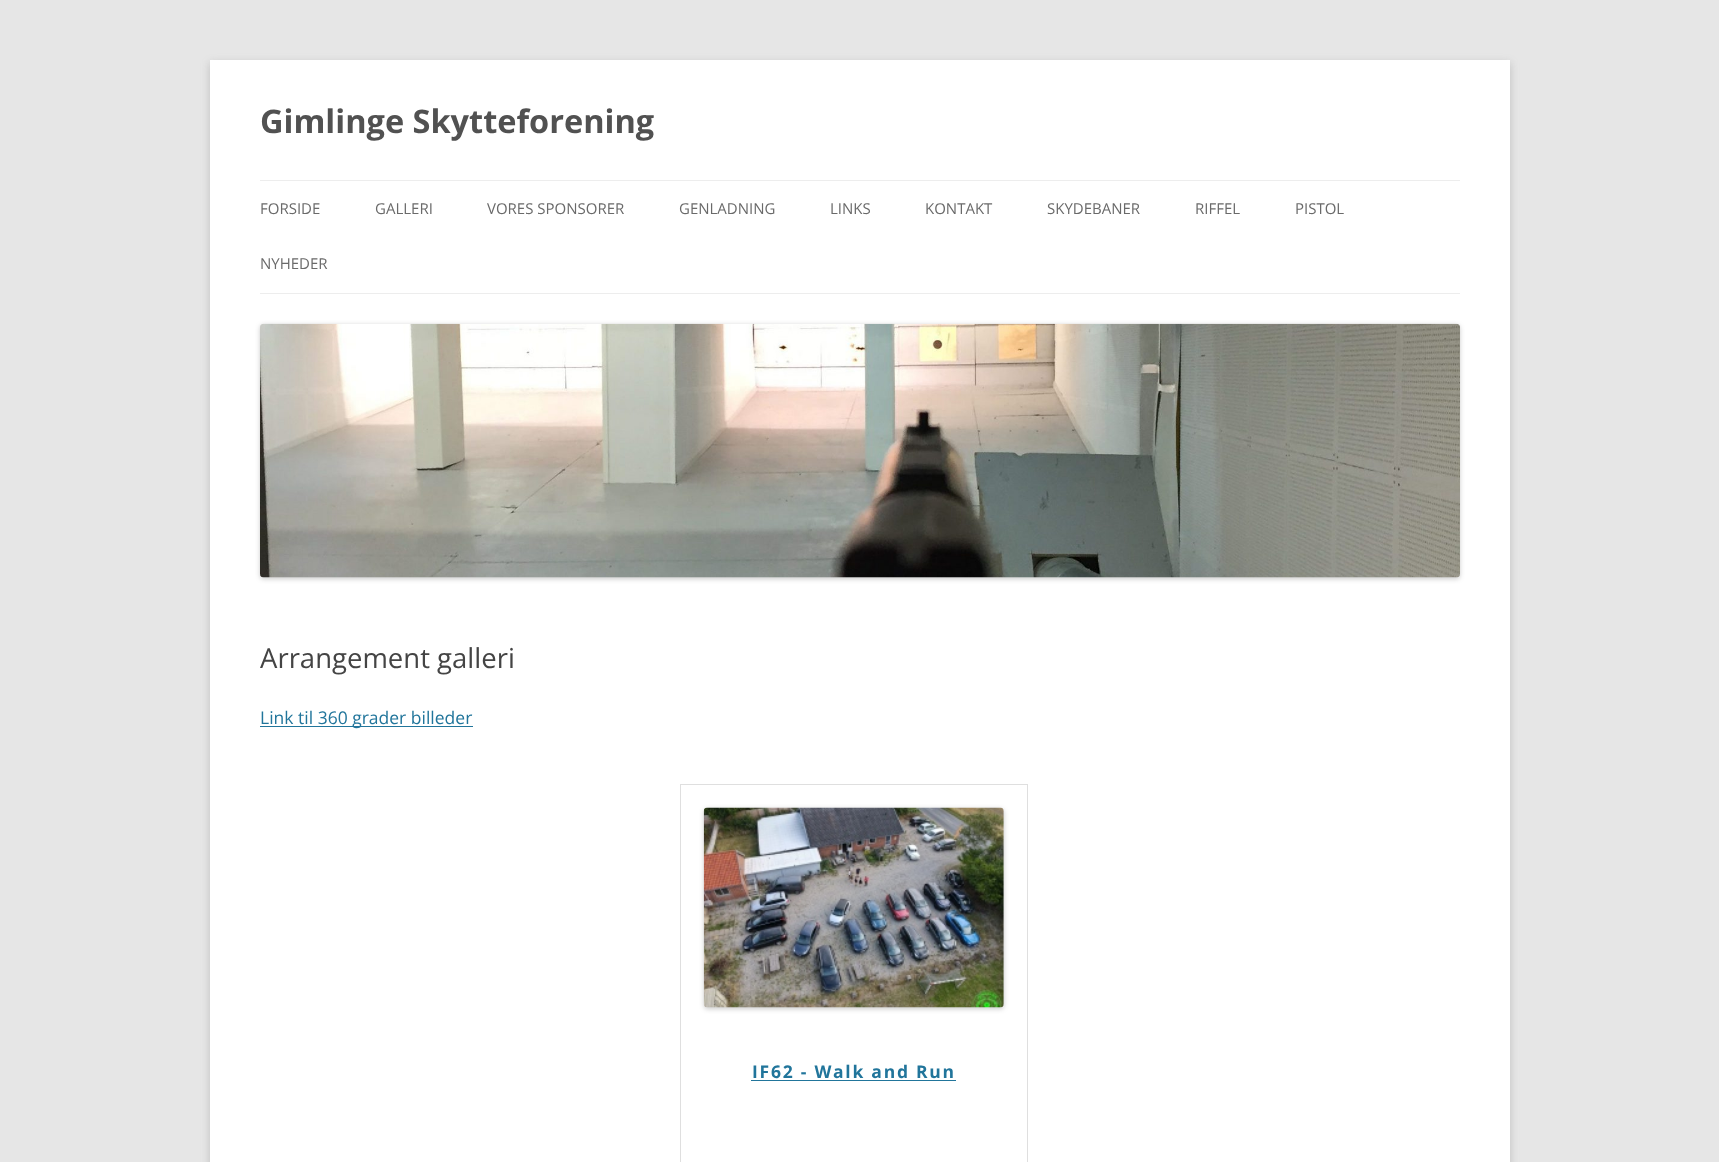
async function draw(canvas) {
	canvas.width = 1719;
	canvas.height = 1162;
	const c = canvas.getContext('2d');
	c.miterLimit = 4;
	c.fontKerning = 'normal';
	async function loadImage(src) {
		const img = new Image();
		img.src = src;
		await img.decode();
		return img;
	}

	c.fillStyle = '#e6e6e6';
	c.fillRect(0, 0, 1719, 1162);
	c.fillStyle = '#6464644d';
	c.filter = 'blur(4px)';
	c.beginPath();
	c.rect(210, 63, 1300, 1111);
	c.fill();
	c.filter = 'none';
	c.fillStyle = '#fff';
	c.fillRect(210, 60, 1300, 1102);
	c.font = 'bold 32.5px Open Sans';
	c.fillStyle = '#515151';
	c.fillText('Gimlinge Skytteforening', 260, 133);
	c.fillStyle = '#ededed';
	c.fillRect(260, 180, 1200, 1);
	c.fillRect(260, 293, 1200, 1);
	c.font = '15px Open Sans';
	c.fillStyle = '#6a6a6a';
	for (const [text, x, y] of [
		['FORSIDE', 260, 214],
		['GALLERI', 375, 214],
		['VORES SPONSORER', 487, 214],
		['GENLADNING', 679, 214],
		['LINKS', 830, 214],
		['KONTAKT', 925, 214],
		['SKYDEBANER', 1047, 214],
		['RIFFEL', 1195, 214],
		['PISTOL', 1295, 214],
		['NYHEDER', 260, 269],
	]) {
		c.fillText(text, x, y);
	}
	c.fillStyle = '#00000033';
	c.filter = 'blur(2.5px)';
	c.beginPath();
	c.roundRect(260, 325, 1200, 254, 4);
	c.fill();
	c.filter = 'none';
	c.drawImage(await loadImage('img1.png'), 260, 323, 1200, 255);
	c.font = '27.5px Open Sans';
	c.fillStyle = '#444';
	c.fillText('Arrangement galleri', 260, 668);
	c.fillStyle = '#21759b';
	c.fillRect(260, 726, 213, 1);
	c.font = '17.5px Open Sans';
	c.fillText('Link til 360 grader billeder', 260, 724);
	c.strokeStyle = '#9696964d';
	c.strokeRect(680.5, 784.5, 347, 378);
	c.fillStyle = '#00000033';
	c.filter = 'blur(2.5px)';
	c.beginPath();
	c.roundRect(704, 809, 300, 200, 4);
	c.fill();
	c.filter = 'none';
	c.drawImage(await loadImage('img2.png'), 703, 807, 301, 201);
	c.letterSpacing = '1.75px';
	c.font = 'bold 17.5px Open Sans';
	c.fillStyle = '#21759b';
	c.fillText('IF62 - Walk and Run', 752, 1078);
	c.fillRect(751, 1080, 205, 1);
}

draw(document.querySelector('canvas'));
